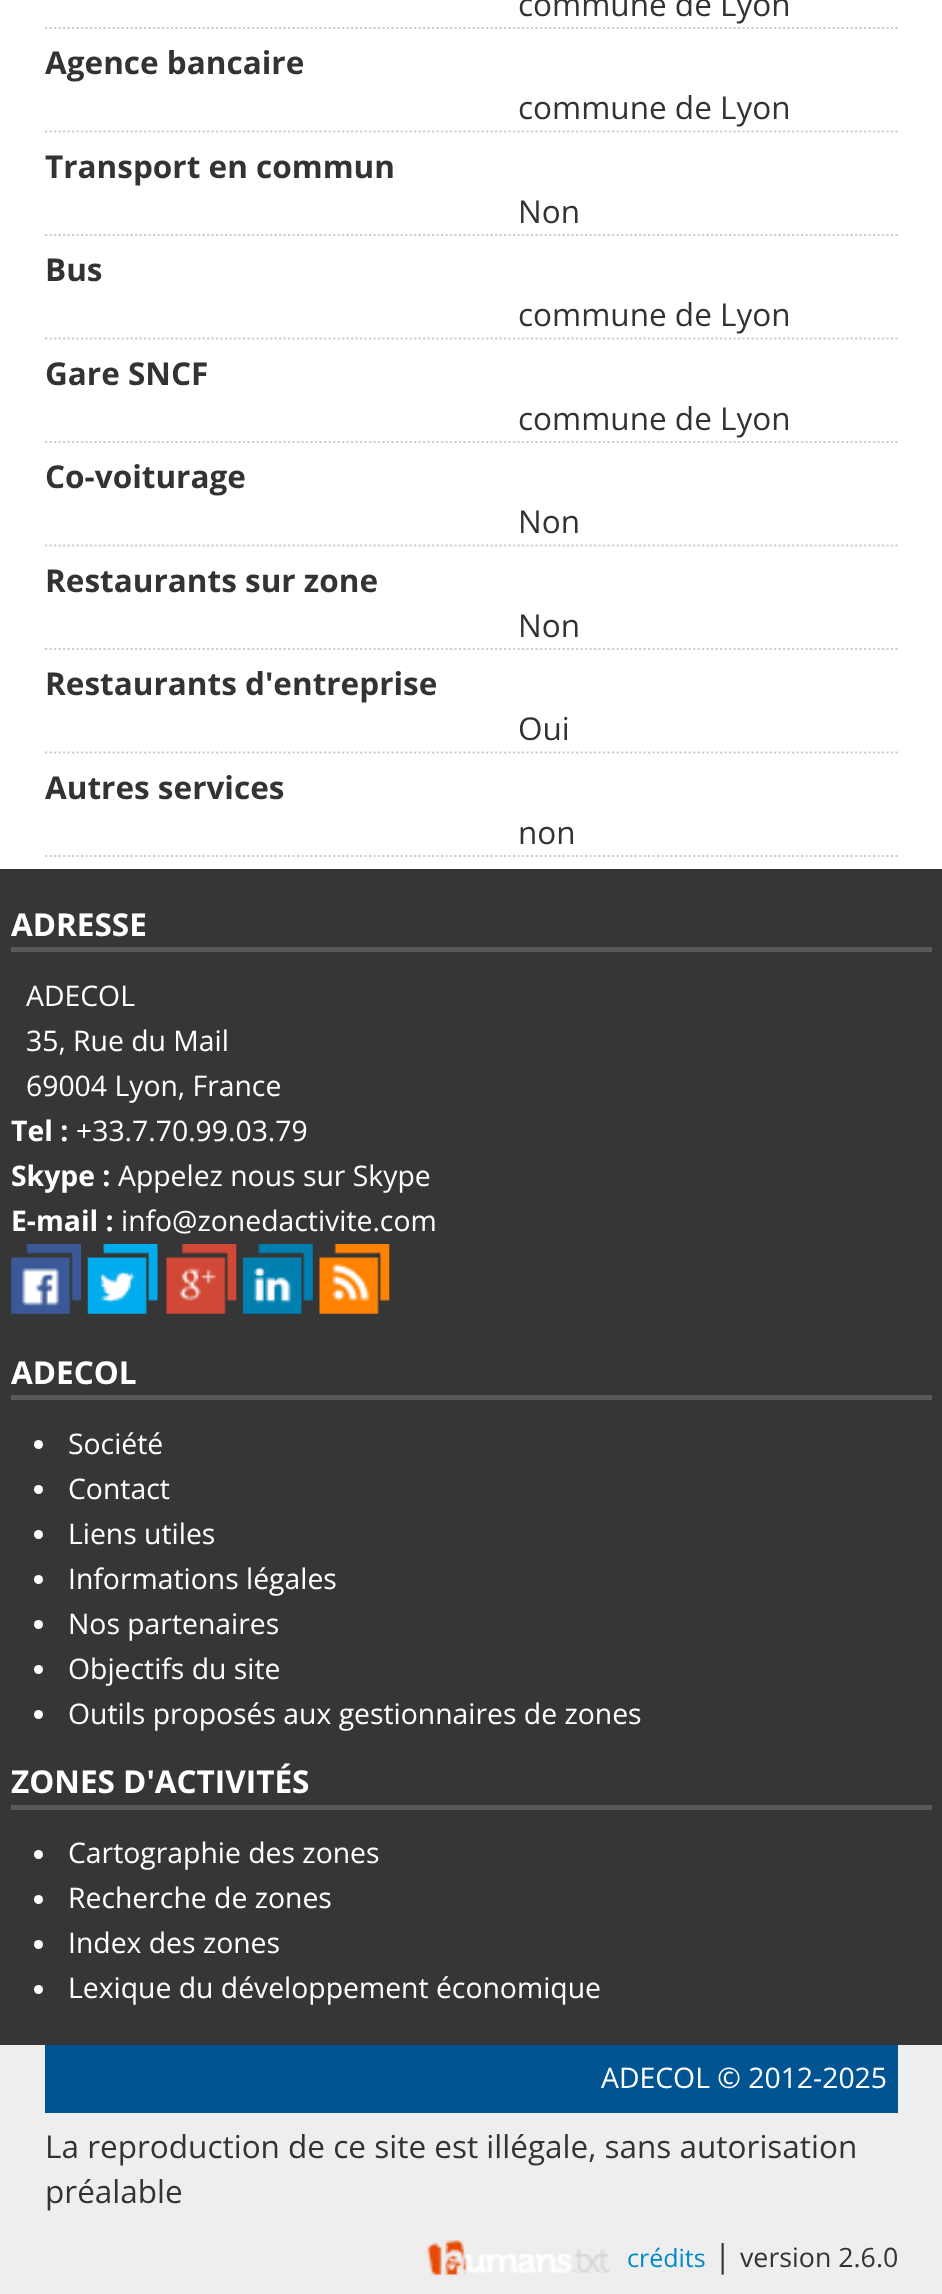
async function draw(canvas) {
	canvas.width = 942;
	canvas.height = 2294;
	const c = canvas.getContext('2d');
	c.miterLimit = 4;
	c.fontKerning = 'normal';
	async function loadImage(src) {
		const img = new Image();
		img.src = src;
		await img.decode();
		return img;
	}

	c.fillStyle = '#fff';
	c.fillRect(0, 0, 942, 2294);
	c.beginPath();
	c.moveTo(45, 28);
	c.lineTo(898, 28);
	c.strokeStyle = '#cecece';
	c.lineWidth = 2.2;
	c.setLineDash([2.25, 2.25]);
	c.stroke();
	c.font = '31.5px Open Sans';
	c.fillStyle = '#333';
	c.fillText('commune de Lyon', 518, 16);
	c.beginPath();
	c.moveTo(45, 131.5);
	c.lineTo(898, 131.5);
	c.stroke();
	c.font = 'bold 31.5px Open Sans';
	c.fillText('Agence bancaire', 45, 74);
	c.font = '31.5px Open Sans';
	c.fillText('commune de Lyon', 518, 119);
	c.beginPath();
	c.moveTo(45, 235);
	c.lineTo(898, 235);
	c.stroke();
	c.font = 'bold 31.5px Open Sans';
	c.fillText('Transport en commun', 45, 178);
	c.font = '31.5px Open Sans';
	c.fillText('Non', 518, 223);
	c.beginPath();
	c.moveTo(45, 338.5);
	c.lineTo(898, 338.5);
	c.stroke();
	c.font = 'bold 31.5px Open Sans';
	c.fillText('Bus', 45, 281);
	c.font = '31.5px Open Sans';
	c.fillText('commune de Lyon', 518, 326);
	c.beginPath();
	c.moveTo(45, 442);
	c.lineTo(898, 442);
	c.stroke();
	c.font = 'bold 31.5px Open Sans';
	c.fillText('Gare SNCF', 45, 385);
	c.font = '31.5px Open Sans';
	c.fillText('commune de Lyon', 518, 430);
	c.beginPath();
	c.moveTo(45, 545.5);
	c.lineTo(898, 545.5);
	c.stroke();
	c.font = 'bold 31.5px Open Sans';
	c.fillText('Co-voiturage', 45, 488);
	c.font = '31.5px Open Sans';
	c.fillText('Non', 518, 533);
	c.beginPath();
	c.moveTo(45, 649);
	c.lineTo(898, 649);
	c.stroke();
	c.font = 'bold 31.5px Open Sans';
	c.fillText('Restaurants sur zone', 45, 592);
	c.font = '31.5px Open Sans';
	c.fillText('Non', 518, 637);
	c.beginPath();
	c.moveTo(45, 752.5);
	c.lineTo(898, 752.5);
	c.stroke();
	c.font = 'bold 31.5px Open Sans';
	c.fillText('Restaurants d\'entreprise', 45, 695);
	c.font = '31.5px Open Sans';
	c.fillText('Oui', 518, 740);
	c.beginPath();
	c.moveTo(45, 856);
	c.lineTo(898, 856);
	c.stroke();
	c.font = 'bold 31.5px Open Sans';
	c.fillText('Autres services', 45, 799);
	c.font = '31.5px Open Sans';
	c.fillText('non', 518, 844);
	c.fillStyle = '#363636';
	c.fillRect(0, 869, 942, 1176);
	c.fillStyle = '#595959';
	c.fillRect(11, 947, 921, 5);
	c.font = 'bold 31.5px Open Sans';
	c.fillStyle = '#fff';
	c.fillText('ADRESSE', 11, 936);
	c.font = '28.35px Open Sans';
	for (const [text, x, y] of [
		['ADECOL', 26, 1006],
		['35, Rue du Mail', 26, 1051],
		['69004 Lyon, France', 26, 1096],
	]) {
		c.fillText(text, x, y);
	}
	c.font = 'bold 28.35px Open Sans';
	c.fillText('Tel :', 11, 1141);
	c.font = '28.35px Open Sans';
	c.fillText('+33.7.70.99.03.79', 76, 1141);
	c.font = 'bold 28.35px Open Sans';
	c.fillText('Skype :', 11, 1186);
	c.font = '28.35px Open Sans';
	c.fillText('Appelez nous sur Skype', 118, 1186);
	c.font = 'bold 28.35px Open Sans';
	c.fillText('E-mail :', 11, 1231);
	c.font = '28.35px Open Sans';
	c.fillText('info@zonedactivite.com', 121, 1231);
	c.drawImage(await loadImage('img1.png'), 11, 1244, 70, 70);
	c.drawImage(await loadImage('img2.png'), 87, 1244, 71, 70);
	c.drawImage(await loadImage('img3.png'), 166, 1244, 71, 70);
	c.drawImage(await loadImage('img4.png'), 243, 1244, 70, 70);
	c.drawImage(await loadImage('img5.png'), 319, 1244, 71, 70);
	c.fillStyle = '#595959';
	c.fillRect(11, 1395, 921, 5);
	c.font = 'bold 31.5px Open Sans';
	c.fillStyle = '#fff';
	c.fillText('ADECOL', 11, 1384);
	c.beginPath();
	c.arc(38.5, 1444.5, 4.5, 0, 2 * Math.PI);
	c.fill();
	c.font = '28.35px Open Sans';
	c.fillText('Société', 68, 1454);
	c.beginPath();
	c.arc(38.5, 1489.5, 4.5, 0, 2 * Math.PI);
	c.fill();
	c.fillText('Contact', 68, 1499);
	c.beginPath();
	c.arc(38.5, 1534.5, 4.5, 0, 2 * Math.PI);
	c.fill();
	c.fillText('Liens utiles', 68, 1544);
	c.beginPath();
	c.arc(38.5, 1579.5, 4.5, 0, 2 * Math.PI);
	c.fill();
	c.fillText('Informations légales', 68, 1589);
	c.beginPath();
	c.arc(38.5, 1624.5, 4.5, 0, 2 * Math.PI);
	c.fill();
	c.fillText('Nos partenaires', 68, 1634);
	c.beginPath();
	c.arc(38.5, 1669.5, 4.5, 0, 2 * Math.PI);
	c.fill();
	c.fillText('Objectifs du site', 68, 1679);
	c.beginPath();
	c.arc(38.5, 1714.5, 4.5, 0, 2 * Math.PI);
	c.fill();
	c.fillText('Outils proposés aux gestionnaires de zones', 68, 1724);
	c.fillStyle = '#595959';
	c.fillRect(11, 1805, 921, 5);
	c.font = 'bold 31.5px Open Sans';
	c.fillStyle = '#fff';
	c.fillText('ZONES D\'ACTIVITÉS', 11, 1793);
	c.beginPath();
	c.arc(38.5, 1854.5, 4.5, 0, 2 * Math.PI);
	c.fill();
	c.font = '28.35px Open Sans';
	c.fillText('Cartographie des zones', 68, 1863);
	c.beginPath();
	c.arc(38.5, 1899.5, 4.5, 0, 2 * Math.PI);
	c.fill();
	c.fillText('Recherche de zones', 68, 1908);
	c.beginPath();
	c.arc(38.5, 1944.5, 4.5, 0, 2 * Math.PI);
	c.fill();
	c.fillText('Index des zones', 68, 1953);
	c.beginPath();
	c.arc(38.5, 1989.5, 4.5, 0, 2 * Math.PI);
	c.fill();
	c.fillText('Lexique du développement économique', 68, 1998);
	c.fillStyle = '#eee';
	c.fillRect(0, 2045, 942, 249);
	c.fillStyle = '#005492';
	c.fillRect(45, 2045, 853, 68);
	c.fillStyle = '#fff';
	c.fillText('ADECOL © 2012-2025', 601, 2088);
	c.font = '31.5px Open Sans';
	c.fillStyle = '#333';
	c.fillText('La reproduction de ce site est illégale, sans autorisation', 45, 2158);
	c.fillText('préalable', 45, 2203);
	c.drawImage(await loadImage('img6.png'), 427, 2240, 183, 36);
	c.font = '25px Open Sans';
	c.fillStyle = '#08c';
	c.fillText('crédits', 627, 2267);
	c.font = '31.5px Open Sans';
	c.fillStyle = '#333';
	c.fillText('|', 714, 2267);
	c.font = '26.75px Open Sans';
	c.fillText('version 2.6.0', 740, 2267);
}

draw(document.querySelector('canvas'));
